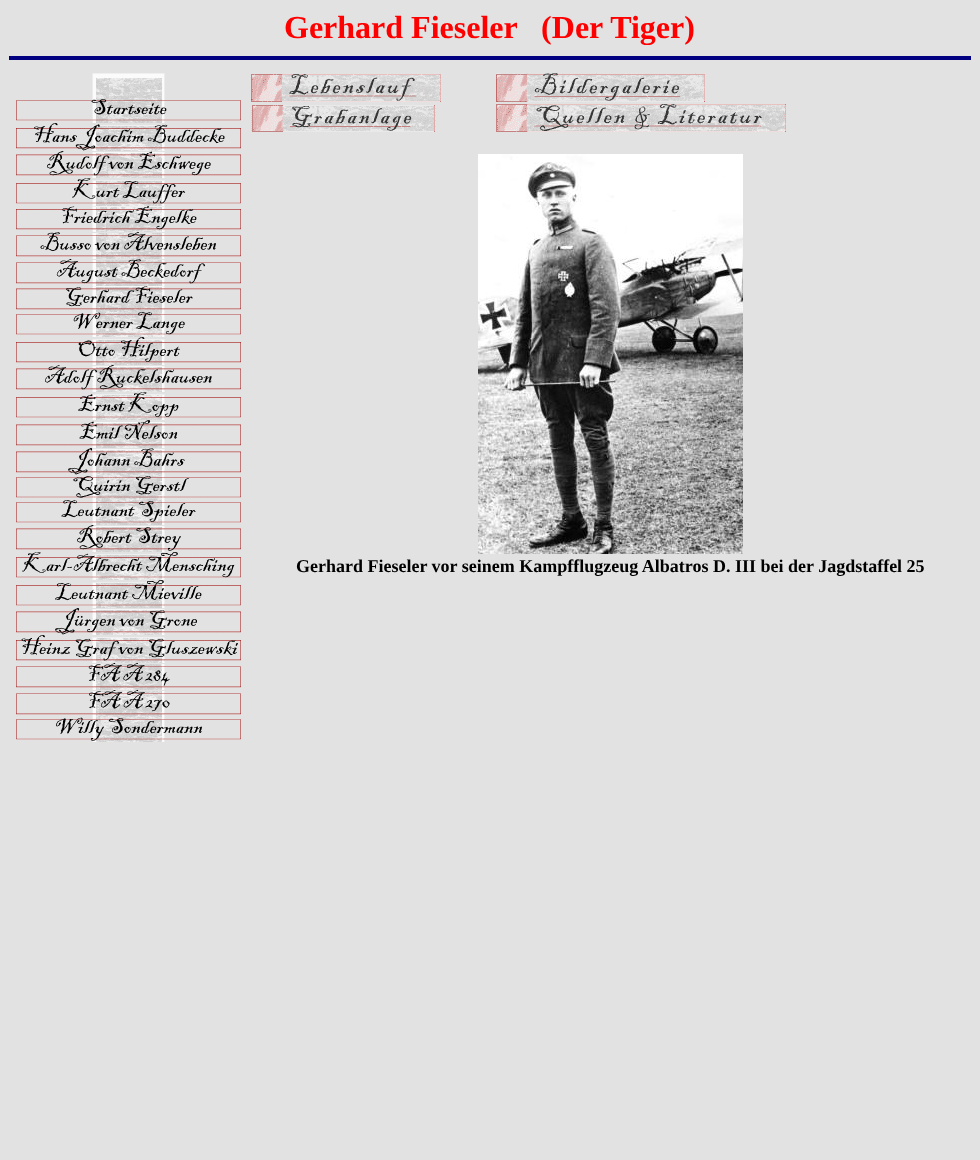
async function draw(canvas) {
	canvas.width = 980;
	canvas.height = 1160;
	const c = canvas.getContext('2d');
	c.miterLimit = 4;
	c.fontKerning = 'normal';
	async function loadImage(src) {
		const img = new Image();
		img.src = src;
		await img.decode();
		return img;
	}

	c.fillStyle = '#e2e2e2';
	c.fillRect(0, 0, 980, 1160);
	c.font = 'bold 32px Liberation Serif';
	c.fillStyle = '#f00';
	c.fillText('Gerhard Fieseler   (Der Tiger)', 284, 38);
	c.fillStyle = '#000080';
	c.fillRect(9, 56, 962, 4);
	c.drawImage(await loadImage('img1.png'), 92, 73, 73, 25);
	c.drawImage(await loadImage('img2.png'), 16, 98, 225, 25);
	c.drawImage(await loadImage('img3.png'), 16, 123, 225, 28);
	c.drawImage(await loadImage('img4.png'), 16, 151, 225, 27);
	c.drawImage(await loadImage('img5.png'), 16, 178, 225, 28);
	c.drawImage(await loadImage('img6.png'), 16, 206, 225, 26);
	c.drawImage(await loadImage('img7.png'), 16, 232, 225, 27);
	c.drawImage(await loadImage('img8.png'), 16, 259, 225, 27);
	c.drawImage(await loadImage('img9.png'), 16, 286, 225, 26);
	c.drawImage(await loadImage('img10.png'), 16, 312, 225, 25);
	c.drawImage(await loadImage('img11.png'), 16, 337, 225, 28);
	c.drawImage(await loadImage('img12.png'), 16, 365, 225, 27);
	c.drawImage(await loadImage('img13.png'), 16, 392, 225, 28);
	c.drawImage(await loadImage('img14.png'), 16, 420, 225, 28);
	c.drawImage(await loadImage('img15.png'), 16, 448, 225, 27);
	c.drawImage(await loadImage('img16.png'), 16, 475, 225, 25);
	c.drawImage(await loadImage('img17.png'), 16, 500, 225, 25);
	c.drawImage(await loadImage('img18.png'), 16, 525, 225, 27);
	c.drawImage(await loadImage('img19.png'), 16, 552, 225, 28);
	c.drawImage(await loadImage('img20.png'), 16, 580, 225, 28);
	c.drawImage(await loadImage('img21.png'), 16, 608, 225, 27);
	c.drawImage(await loadImage('img22.png'), 16, 635, 225, 28);
	c.drawImage(await loadImage('img23.png'), 16, 663, 225, 27);
	c.drawImage(await loadImage('img24.png'), 16, 690, 225, 27);
	c.drawImage(await loadImage('img25.png'), 16, 717, 225, 25);
	c.drawImage(await loadImage('img26.png'), 251, 74, 190, 28);
	c.drawImage(await loadImage('img27.png'), 496, 73, 209, 29);
	c.drawImage(await loadImage('img28.png'), 251, 105, 185, 27);
	c.drawImage(await loadImage('img29.png'), 496, 104, 290, 28);
	c.drawImage(await loadImage('img30.png'), 478, 154, 265, 400);
	c.font = 'bold 18px Liberation Serif';
	c.fillStyle = '#000';
	c.fillText('Gerhard Fieseler vor seinem Kampfflugzeug Albatros D. III bei der Jagdstaffel 25', 296, 572);
}

draw(document.querySelector('canvas'));
